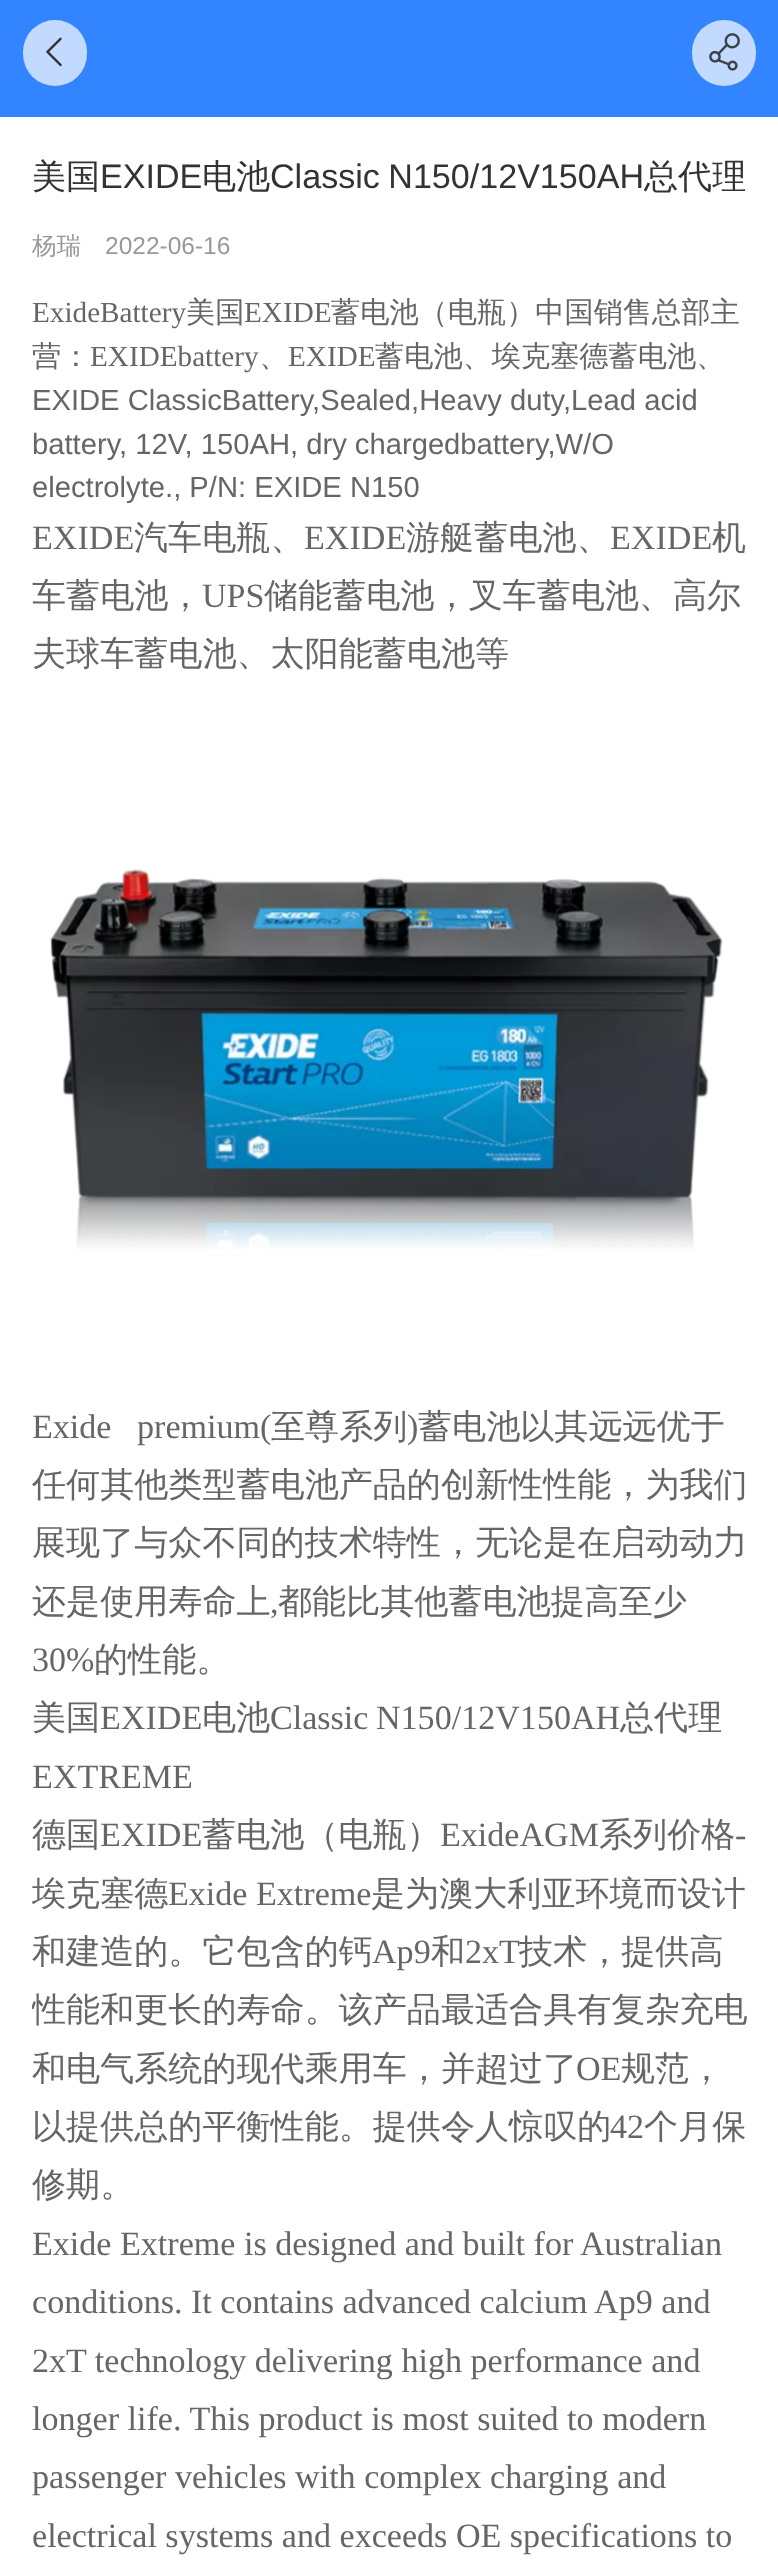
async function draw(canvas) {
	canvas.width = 778;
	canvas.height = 2570;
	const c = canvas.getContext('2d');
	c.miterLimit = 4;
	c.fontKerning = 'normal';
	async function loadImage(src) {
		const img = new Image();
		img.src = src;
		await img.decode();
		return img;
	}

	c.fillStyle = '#fff';
	c.fillRect(0, 0, 778, 2570);
	c.fillStyle = '#3285ff';
	c.fillRect(0, 0, 778, 117);
	c.fillStyle = '#c2daff';
	c.beginPath();
	c.roundRect(23, 20, 64, 66, 32);
	c.fill();
	c.drawImage(await loadImage('img1.png'), 46, 37, 16, 30);
	c.beginPath();
	c.roundRect(692, 20, 64, 66, 32);
	c.fill();
	c.drawImage(await loadImage('img2.png'), 709, 33, 31, 38);
	c.font = '500 34.1px WenQuanYi Zen Hei';
	c.fillStyle = '#333';
	c.fillText('美国', 32, 188);
	c.font = '34.1px Liberation Sans';
	c.fillText('EXIDE', 100, 188);
	c.font = '500 34.1px WenQuanYi Zen Hei';
	c.fillText('电池', 202, 188);
	c.wordSpacing = '-1px';
	c.font = '34.1px Liberation Sans';
	c.fillText('Classic N150/12V150AH', 270, 188);
	c.wordSpacing = '0px';
	c.font = '500 34.1px WenQuanYi Zen Hei';
	c.fillText('总代理', 644, 188);
	c.font = '500 24.5px WenQuanYi Zen Hei';
	c.fillStyle = '#999';
	c.fillText('杨瑞', 32, 254);
	c.font = '24.5px Liberation Sans';
	c.fillText('2022-06-16', 105, 254);
	c.font = '29.2px Liberation Serif';
	c.fillStyle = '#666';
	c.fillText('ExideBattery', 32, 322);
	c.font = '500 29.2px WenQuanYi Zen Hei';
	c.fillText('美国', 186, 322);
	c.font = '29.2px Liberation Serif';
	c.fillText('EXIDE', 244, 322);
	c.font = '500 29.2px WenQuanYi Zen Hei';
	c.fillText('蓄电池（电瓶）中国销售总部主', 331, 322);
	c.fillText('营：', 32, 366);
	c.font = '29.2px Liberation Serif';
	c.fillText('EXIDEbattery', 90, 366);
	c.font = '500 29.2px WenQuanYi Zen Hei';
	c.fillText('、', 259, 366);
	c.font = '29.2px Liberation Serif';
	c.fillText('EXIDE', 288, 366);
	c.font = '500 29.2px WenQuanYi Zen Hei';
	c.fillText('蓄电池、埃克塞德蓄电池、', 375, 366);
	c.font = '29.2px Liberation Sans';
	for (const [text, x, y] of [
		['EXIDE ClassicBattery,Sealed,Heavy duty,Lead acid', 32, 410],
		['battery, 12V, 150AH, dry chargedbattery,W/O', 32, 454],
		['electrolyte., P/N: EXIDE N150', 32, 497],
	]) {
		c.fillText(text, x, y);
	}
	c.font = '34.1px Liberation Serif';
	c.fillText('EXIDE', 32, 549);
	c.font = '500 34.1px WenQuanYi Zen Hei';
	c.fillText('汽车电瓶、', 134, 549);
	c.font = '34.1px Liberation Serif';
	c.fillText('EXIDE', 304, 549);
	c.font = '500 34.1px WenQuanYi Zen Hei';
	c.fillText('游艇蓄电池、', 406, 549);
	c.font = '34.1px Liberation Serif';
	c.fillText('EXIDE', 610, 549);
	c.font = '500 34.1px WenQuanYi Zen Hei';
	c.fillText('机', 712, 549);
	c.fillText('车蓄电池，', 32, 607);
	c.font = '34.1px Liberation Serif';
	c.fillText('UPS', 202, 607);
	c.font = '500 34.1px WenQuanYi Zen Hei';
	c.fillText('储能蓄电池，叉车蓄电池、高尔', 264, 607);
	c.fillText('夫球车蓄电池、太阳能蓄电池等', 32, 665);
	c.drawImage(await loadImage('img3.png'), 50, 868, 673, 381);
	c.font = '34.1px Liberation Serif';
	c.fillText('Exide   premium(', 32, 1438);
	c.font = '500 34.1px WenQuanYi Zen Hei';
	c.fillText('至尊系列', 271, 1438);
	c.font = '34.1px Liberation Serif';
	c.fillText(')', 407, 1438);
	c.font = '500 34.1px WenQuanYi Zen Hei';
	for (const [text, x, y] of [
		['蓄电池以其远远优于', 418, 1438],
		['任何其他类型蓄电池产品的创新性性能，为我们', 32, 1496],
		['展现了与众不同的技术特性，无论是在启动动力', 32, 1554],
		['还是使用寿命上', 32, 1613],
	]) {
		c.fillText(text, x, y);
	}
	c.font = '34.1px Liberation Serif';
	c.fillText(',', 270, 1613);
	c.font = '500 34.1px WenQuanYi Zen Hei';
	c.fillText('都能比其他蓄电池提高至少', 278, 1613);
	c.font = '34.1px Liberation Serif';
	c.fillText('30%', 32, 1671);
	c.font = '500 34.1px WenQuanYi Zen Hei';
	c.fillText('的性能。', 94, 1671);
	c.fillText('美国', 32, 1729);
	c.font = '34.1px Liberation Serif';
	c.fillText('EXIDE', 100, 1729);
	c.font = '500 34.1px WenQuanYi Zen Hei';
	c.fillText('电池', 202, 1729);
	c.wordSpacing = '-1px';
	c.font = '34.1px Liberation Serif';
	c.fillText('Classic N150/12V150AH', 270, 1729);
	c.wordSpacing = '0px';
	c.font = '500 34.1px WenQuanYi Zen Hei';
	c.fillText('总代理', 620, 1729);
	c.font = '34.1px Liberation Serif';
	c.fillText('EXTREME', 32, 1788);
	c.font = '500 34.1px WenQuanYi Zen Hei';
	c.fillText('德国', 32, 1846);
	c.font = '34.1px Liberation Serif';
	c.fillText('EXIDE', 100, 1846);
	c.font = '500 34.1px WenQuanYi Zen Hei';
	c.fillText('蓄电池（电瓶）', 202, 1846);
	c.font = '34.1px Liberation Serif';
	c.fillText('ExideAGM', 440, 1846);
	c.font = '500 34.1px WenQuanYi Zen Hei';
	c.fillText('系列价格', 599, 1846);
	c.font = '34.1px Liberation Serif';
	c.fillText('-', 735, 1846);
	c.font = '500 34.1px WenQuanYi Zen Hei';
	c.fillText('埃克塞德', 32, 1905);
	c.font = '34.1px Liberation Serif';
	c.fillText('Exide Extreme', 168, 1905);
	c.font = '500 34.1px WenQuanYi Zen Hei';
	c.fillText('是为澳大利亚环境而设计', 371, 1905);
	c.fillText('和建造的。它包含的钙', 32, 1963);
	c.font = '34.1px Liberation Serif';
	c.fillText('Ap9', 372, 1963);
	c.font = '500 34.1px WenQuanYi Zen Hei';
	c.fillText('和', 431, 1963);
	c.font = '34.1px Liberation Serif';
	c.fillText('2xT', 465, 1963);
	c.font = '500 34.1px WenQuanYi Zen Hei';
	c.fillText('技术，提供高', 519, 1963);
	c.save();
	c.beginPath();
	c.rect(32, 291, 715, 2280);
	c.clip();
	c.fillText('性能和更长的寿命。该产品最适合具有复杂充电', 32, 2021);
	c.restore();
	c.fillText('和电气系统的现代乘用车，并超过了', 32, 2080);
	c.font = '34.1px Liberation Serif';
	c.fillText('OE', 576, 2080);
	c.font = '500 34.1px WenQuanYi Zen Hei';
	c.fillText('规范，', 621, 2080);
	c.fillText('以提供总的平衡性能。提供令人惊叹的', 32, 2138);
	c.font = '34.1px Liberation Serif';
	c.fillText('42', 610, 2138);
	c.font = '500 34.1px WenQuanYi Zen Hei';
	c.fillText('个月保', 644, 2138);
	c.fillText('修期。', 32, 2196);
	c.font = '34.1px Liberation Serif';
	for (const [text, x, y] of [
		['Exide Extreme is designed and built for Australian', 32, 2255],
		['conditions. It contains advanced calcium Ap9 and', 32, 2313],
		['2xT technology delivering high performance and', 32, 2372],
		['longer life. This product is most suited to modern', 32, 2430],
		['passenger vehicles with complex charging and', 32, 2488],
		['electrical systems and exceeds OE specifications to', 32, 2547],
	]) {
		c.fillText(text, x, y);
	}
}

draw(document.querySelector('canvas'));
